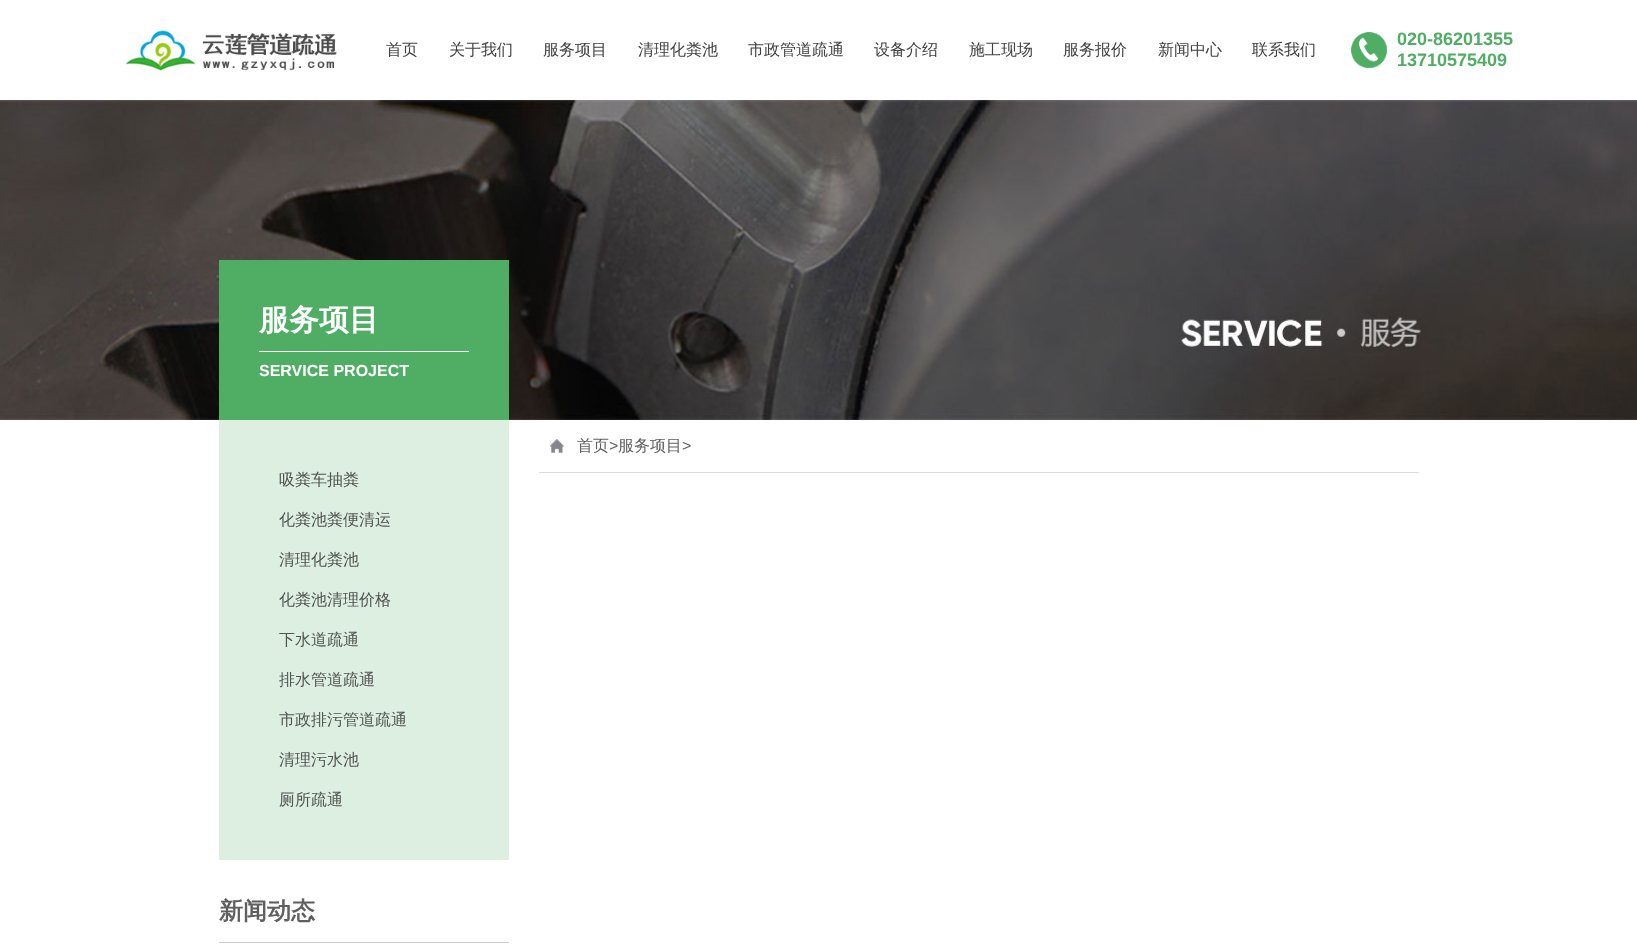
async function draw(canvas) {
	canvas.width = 1637;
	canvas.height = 951;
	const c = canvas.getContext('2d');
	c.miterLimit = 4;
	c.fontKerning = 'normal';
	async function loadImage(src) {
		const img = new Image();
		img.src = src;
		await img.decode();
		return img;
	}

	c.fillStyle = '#fff';
	c.fillRect(0, 0, 1637, 951);
	c.drawImage(await loadImage('img1.png'), 125, 29, 212, 43);
	c.font = '500 16px WenQuanYi Zen Hei';
	c.fillStyle = '#404040';
	for (const [text, x, y] of [
		['首页', 386, 55],
		['关于我们', 449, 55],
		['服务项目', 543, 55],
		['清理化粪池', 638, 55],
		['市政管道疏通', 748, 55],
		['设备介绍', 874, 55],
		['施工现场', 969, 55],
		['服务报价', 1063, 55],
		['新闻中心', 1158, 55],
		['联系我们', 1252, 55],
	]) {
		c.fillText(text, x, y);
	}
	c.drawImage(await loadImage('img2.png'), 1351, 32, 36, 36);
	c.font = 'bold 18px Liberation Sans';
	c.fillStyle = '#50ad64';
	c.fillText('020-86201355', 1397, 45);
	c.fillText('13710575409', 1397, 66);
	c.drawImage(await loadImage('img3.png'), 0, 100, 1637, 320);
	c.fillRect(219, 260, 290, 160);
	c.fillStyle = '#fff';
	c.fillRect(259, 351, 210, 1);
	c.font = 'bold 30px WenQuanYi Zen Hei';
	c.fillText('服务项目', 259, 330);
	c.font = 'bold 16px Liberation Sans';
	c.fillText('SERVICE PROJECT', 259, 376);
	c.fillStyle = '#dcefe0';
	c.fillRect(219, 420, 290, 440);
	c.font = '500 16px WenQuanYi Zen Hei';
	c.fillStyle = '#525252';
	for (const [text, x, y] of [
		['吸粪车抽粪', 279, 485],
		['化粪池粪便清运', 279, 525],
		['清理化粪池', 279, 565],
		['化粪池清理价格', 279, 605],
		['下水道疏通', 279, 645],
		['排水管道疏通', 279, 685],
		['市政排污管道疏通', 279, 725],
		['清理污水池', 279, 765],
		['厕所疏通', 279, 805],
	]) {
		c.fillText(text, x, y);
	}
	c.fillStyle = '#ccc';
	c.fillRect(219, 942, 290, 1);
	c.font = 'bold 24px WenQuanYi Zen Hei';
	c.fillStyle = '#5f5f5f';
	c.fillText('新闻动态', 219, 919);
	c.fillStyle = '#ddd';
	c.fillRect(539, 472, 880, 1);
	c.drawImage(await loadImage('img4.png'), 550, 439, 14, 14);
	c.font = '500 16px WenQuanYi Zen Hei';
	c.fillStyle = '#5f5f5f';
	c.fillText('首页', 577, 451);
	c.font = '16px Liberation Sans';
	c.fillText('>', 609, 451);
	c.font = '500 16px WenQuanYi Zen Hei';
	c.fillText('服务项目', 618, 451);
	c.font = '16px Liberation Sans';
	c.fillText('>', 682, 451);
}

draw(document.querySelector('canvas'));
